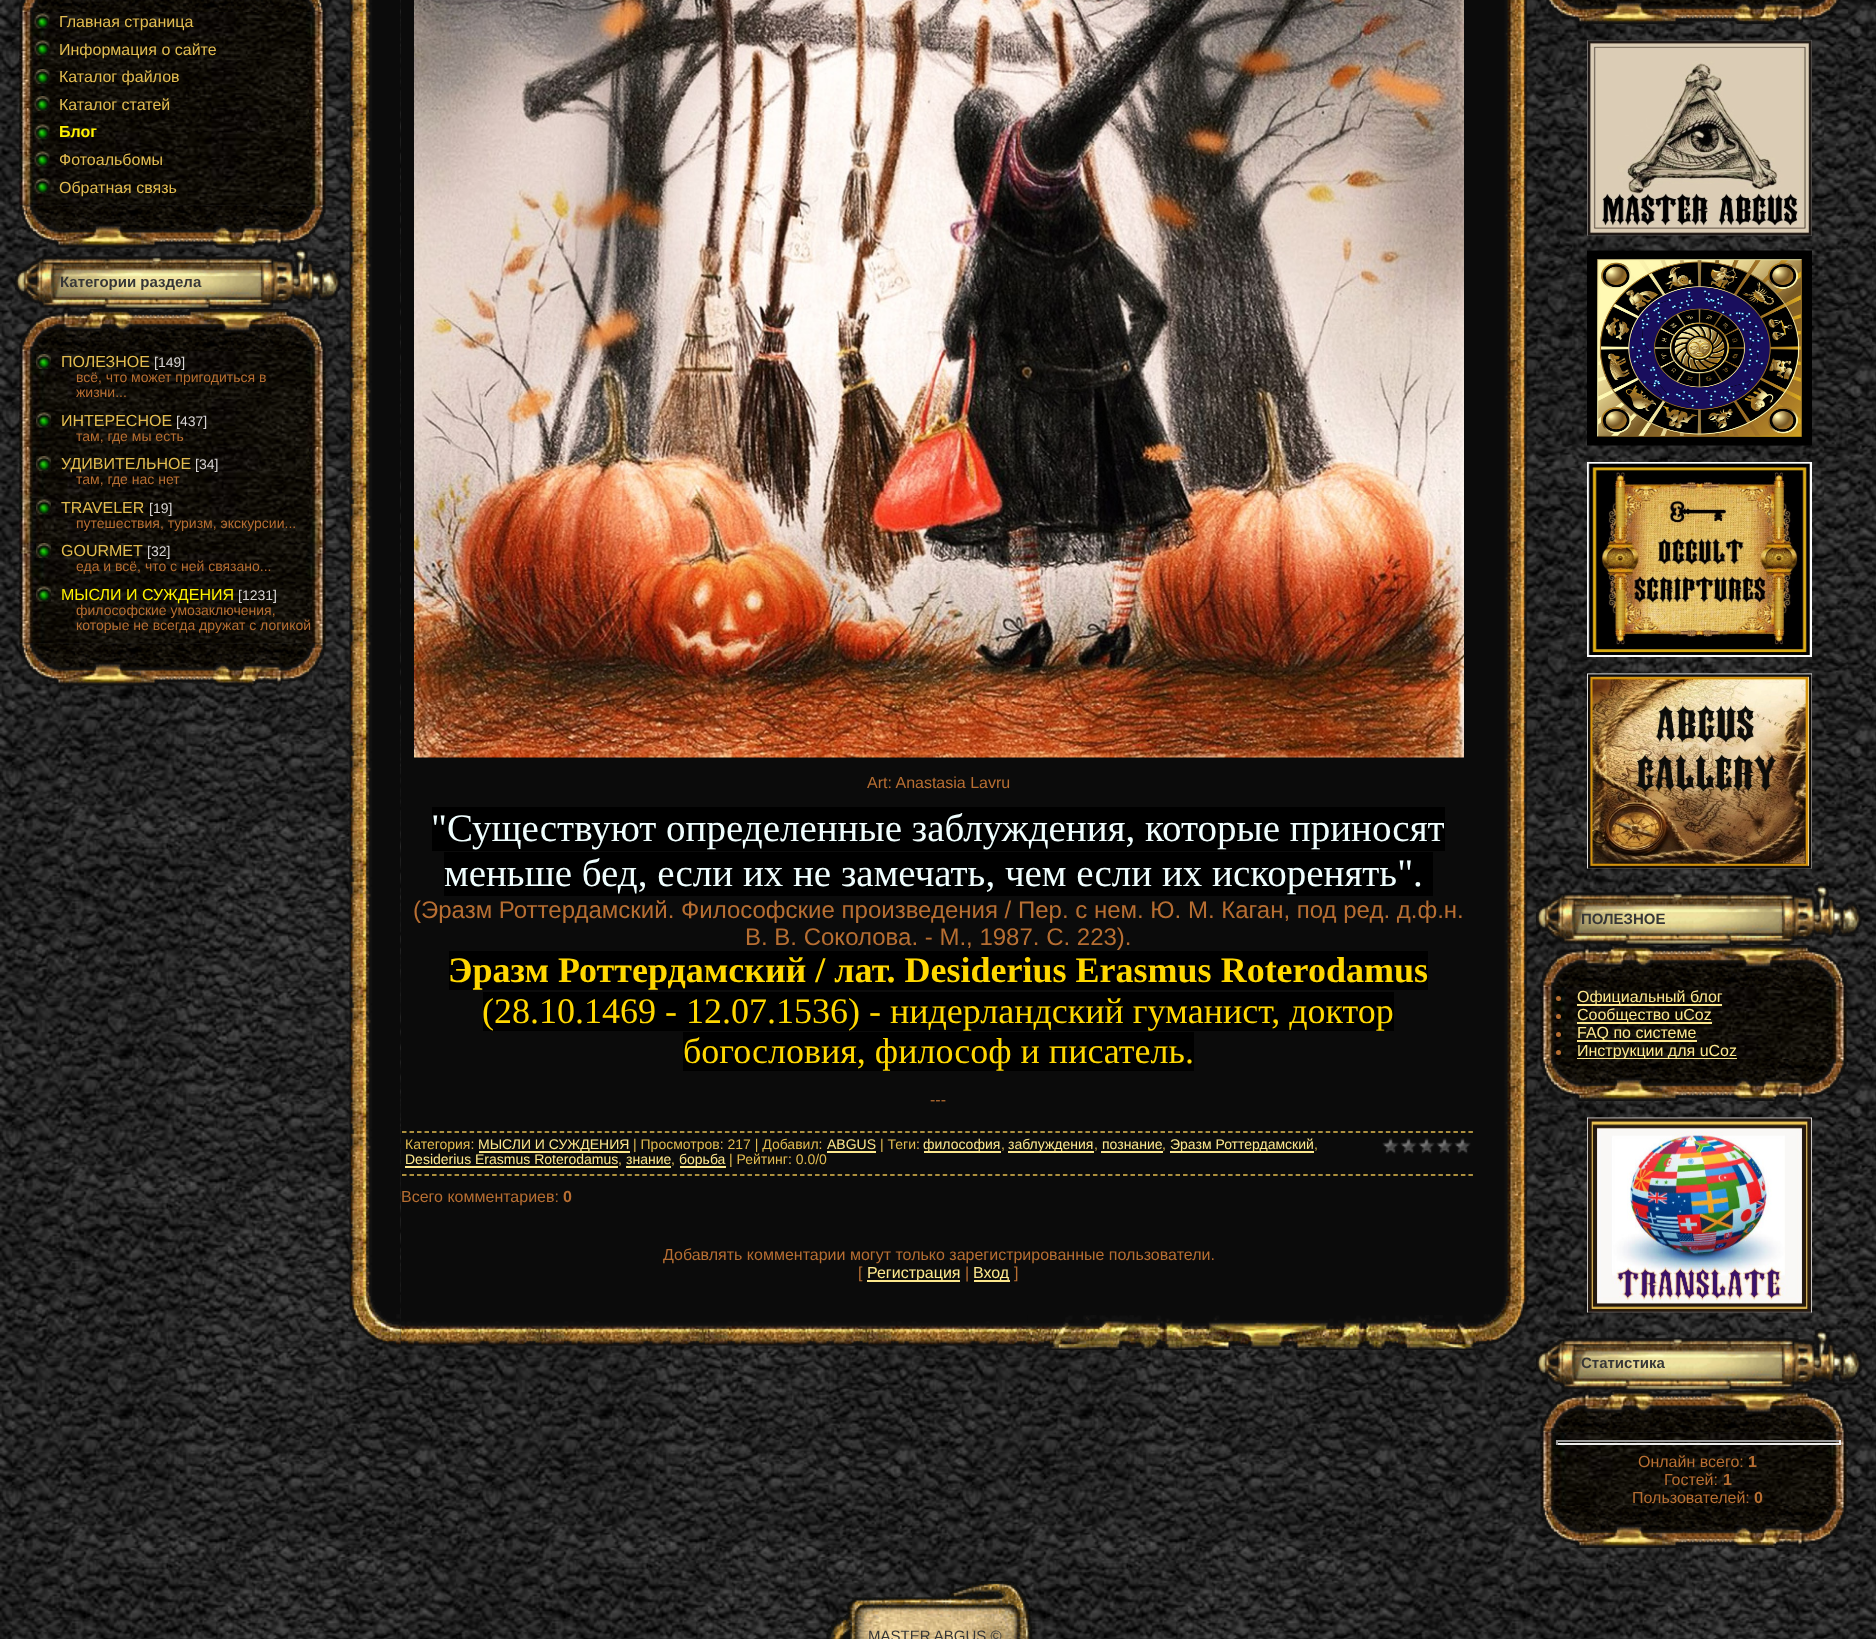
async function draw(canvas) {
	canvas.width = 1876;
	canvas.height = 1639;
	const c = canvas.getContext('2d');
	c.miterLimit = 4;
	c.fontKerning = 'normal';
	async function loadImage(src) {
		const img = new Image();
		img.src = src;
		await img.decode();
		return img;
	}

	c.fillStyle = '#fff';
	c.fillRect(0, 0, 1876, 1639);
	c.drawImage(await loadImage('img1.png'), 0, 0, 1876, 1639);
	c.drawImage(await loadImage('img2.png'), 19, 0, 307, 12);
	c.drawImage(await loadImage('img3.png'), 19, 12, 307, 194);
	c.drawImage(await loadImage('img4.png'), 34, 13, 16, 16);
	c.font = '16px Liberation Sans';
	c.fillStyle = '#e2bc50';
	c.fillText('Главная страница', 59, 27);
	c.drawImage(await loadImage('img5.png'), 34, 40, 16, 16);
	c.fillText('Информация о сайте', 59, 55);
	c.drawImage(await loadImage('img6.png'), 34, 69, 16, 15);
	c.fillText('Каталог файлов', 59, 82);
	c.drawImage(await loadImage('img7.png'), 34, 96, 16, 15);
	c.fillText('Каталог статей', 59, 110);
	c.drawImage(await loadImage('img8.png'), 34, 124, 16, 16);
	c.font = 'bold 16px Liberation Sans';
	c.fillStyle = '#fff200';
	c.fillText('Блог', 59, 137);
	c.drawImage(await loadImage('img9.png'), 34, 151, 16, 16);
	c.font = '16px Liberation Sans';
	c.fillStyle = '#e2bc50';
	c.fillText('Фотоальбомы', 59, 165);
	c.drawImage(await loadImage('img10.png'), 34, 178, 16, 16);
	c.fillText('Обратная связь', 59, 193);
	c.drawImage(await loadImage('img12.png'), 15, 247, 326, 62);
	c.drawImage(await loadImage('img11.png'), 19, 205, 307, 43);
	c.font = 'bold 15px Liberation Sans';
	c.fillStyle = '#363636';
	c.fillText('Категории раздела', 60, 287);
	c.drawImage(await loadImage('img13.png'), 19, 309, 307, 42);
	c.drawImage(await loadImage('img14.png'), 19, 351, 307, 293);
	c.drawImage(await loadImage('img15.png'), 36, 354, 15, 15);
	c.font = '16px Liberation Sans';
	c.fillStyle = '#e2bc50';
	c.fillText('ПОЛЕЗНОЕ', 61, 367);
	c.font = '14px Liberation Sans';
	c.fillStyle = '#d8d5d5';
	c.fillText('[149]', 154, 367);
	c.fillStyle = '#b76e32';
	c.fillText('всё, что может пригодиться в', 76, 382);
	c.fillText('жизни...', 76, 397);
	c.drawImage(await loadImage('img16.png'), 36, 412, 15, 16);
	c.font = '16px Liberation Sans';
	c.fillStyle = '#e2bc50';
	c.fillText('ИНТЕРЕСНОЕ', 61, 426);
	c.font = '14px Liberation Sans';
	c.fillStyle = '#d8d5d5';
	c.fillText('[437]', 176, 426);
	c.fillStyle = '#b76e32';
	c.fillText('там, где мы есть', 76, 441);
	c.drawImage(await loadImage('img15.png'), 36, 456, 15, 15);
	c.font = '16px Liberation Sans';
	c.fillStyle = '#e2bc50';
	c.fillText('УДИВИТЕЛЬНОЕ', 61, 469);
	c.font = '14px Liberation Sans';
	c.fillStyle = '#d8d5d5';
	c.fillText('[34]', 195, 469);
	c.fillStyle = '#b76e32';
	c.fillText('там, где нас нет', 76, 484);
	c.drawImage(await loadImage('img17.png'), 36, 499, 15, 16);
	c.font = '16px Liberation Sans';
	c.fillStyle = '#e2bc50';
	c.fillText('TRAVELER', 61, 513);
	c.font = '14px Liberation Sans';
	c.fillStyle = '#d8d5d5';
	c.fillText('[19]', 149, 513);
	c.fillStyle = '#b76e32';
	c.fillText('путешествия, туризм, экскурсии...', 76, 528);
	c.drawImage(await loadImage('img15.png'), 36, 543, 15, 15);
	c.font = '16px Liberation Sans';
	c.fillStyle = '#e2bc50';
	c.fillText('GOURMET', 61, 556);
	c.font = '14px Liberation Sans';
	c.fillStyle = '#d8d5d5';
	c.fillText('[32]', 147, 556);
	c.fillStyle = '#b76e32';
	c.fillText('еда и всё, что с ней связано...', 76, 571);
	c.drawImage(await loadImage('img18.png'), 36, 586, 15, 16);
	c.font = '16px Liberation Sans';
	c.fillStyle = '#fff200';
	c.fillText('МЫСЛИ И СУЖДЕНИЯ', 61, 600);
	c.font = '14px Liberation Sans';
	c.fillStyle = '#d8d5d5';
	c.fillText('[1231]', 238, 600);
	c.fillStyle = '#b76e32';
	c.fillText('философские умозаключения,', 76, 615);
	c.fillText('которые не всегда дружат с логикой', 76, 630);
	c.drawImage(await loadImage('img19.png'), 19, 643, 307, 43);
	c.drawImage(await loadImage('img20.png'), 349, 0, 52, 1296);
	c.fillStyle = '#0b0b0b';
	c.fillRect(401, 0, 1075, 1296);
	c.drawImage(await loadImage('img21.png'), 414, 0, 1050, 758);
	c.font = '16px Liberation Sans';
	c.fillStyle = '#b76e32';
	c.fillText('Art: Anastasia Lavru', 867, 788);
	c.fillStyle = '#000';
	c.fillRect(432, 807, 1013, 44);
	c.font = '39px Liberation Serif';
	c.fillStyle = '#f0ffff';
	c.fillText('"Существуют определенные заблуждения, которые приносят', 431, 841);
	c.fillStyle = '#000';
	c.fillRect(444, 852, 989, 44);
	c.fillStyle = '#f0ffff';
	c.fillText('меньше бед, если их не замечать, чем если их искоренять".', 444, 886);
	c.font = '24px Liberation Sans';
	c.fillStyle = '#b76e32';
	c.fillText('(Эразм Роттердамский. Философские произведения / Пер. с нем. Ю. М. Каган, под ред. д.ф.н.', 413, 918);
	c.fillText('В. В. Соколова. - М., 1987. С. 223).', 745, 945);
	c.fillStyle = '#000';
	c.fillRect(449, 951, 979, 39);
	c.font = 'bold 36px Liberation Serif';
	c.fillStyle = '#ffd700';
	c.fillText('Эразм Роттердамский / лат. Desiderius Erasmus Roterodamus', 448, 982);
	c.fillStyle = '#000';
	c.fillRect(483, 992, 911, 39);
	c.font = '36px Liberation Serif';
	c.fillStyle = '#ffd700';
	c.fillText('(28.10.1469 - 12.07.1536) - нидерландский гуманист, доктор', 482, 1023);
	c.fillStyle = '#000';
	c.fillRect(683, 1032, 511, 39);
	c.fillStyle = '#ffd700';
	c.fillText('богословия, философ и писатель.', 683, 1063);
	c.font = '16px Liberation Sans';
	c.fillStyle = '#b76e32';
	c.fillText('---', 930, 1105);
	c.beginPath();
	c.moveTo(402, 1132);
	c.lineTo(1474.5, 1132);
	c.strokeStyle = '#e2bc50';
	c.lineWidth = 1.5;
	c.setLineDash([4.5, 3.01]);
	c.stroke();
	c.beginPath();
	c.moveTo(402, 1175);
	c.lineTo(1474.5, 1175);
	c.stroke();
	c.font = '14px Liberation Sans';
	c.fillStyle = '#e2bc50';
	c.fillText('Категория:', 405, 1149);
	c.fillStyle = '#fde88d';
	c.fillRect(479, 1151, 151, 2);
	c.fillText('МЫСЛИ И СУЖДЕНИЯ', 478, 1149);
	c.fillStyle = '#e2bc50';
	c.fillText('| Просмотров: 217 | Добавил:', 633, 1149);
	c.fillStyle = '#fde88d';
	c.fillText('ABGUS', 827, 1149);
	c.fillRect(827, 1151, 49, 2);
	c.fillStyle = '#e2bc50';
	c.fillText('| Теги:', 880, 1149);
	c.fillStyle = '#fde88d';
	c.fillRect(924, 1151, 77, 2);
	c.fillText('философия', 923, 1149);
	c.fillStyle = '#e2bc50';
	c.fillText(',', 1001, 1149);
	c.fillStyle = '#fde88d';
	c.fillRect(1008, 1151, 86, 2);
	c.fillText('заблуждения', 1008, 1149);
	c.fillStyle = '#e2bc50';
	c.fillText(',', 1094, 1149);
	c.fillStyle = '#fde88d';
	c.fillText('познание', 1102, 1149);
	c.fillStyle = '#e2bc50';
	c.fillText(',', 1162, 1149);
	c.fillStyle = '#fde88d';
	c.fillRect(1101, 1151, 62, 2);
	c.fillRect(1170, 1151, 144, 2);
	c.fillText('Эразм Роттердамский', 1170, 1149);
	c.fillStyle = '#e2bc50';
	c.fillText(',', 1314, 1149);
	c.drawImage(await loadImage('img22.png'), 1382, 1138, 89, 16);
	c.fillStyle = '#fde88d';
	c.fillText('Desiderius Erasmus Roterodamus', 405, 1164);
	c.fillStyle = '#e2bc50';
	c.fillText(',', 618, 1164);
	c.fillStyle = '#fde88d';
	c.fillRect(405, 1166, 213, 2);
	c.fillText('знание', 626, 1164);
	c.fillStyle = '#e2bc50';
	c.fillText(',', 671, 1164);
	c.fillStyle = '#fde88d';
	c.fillRect(626, 1166, 45, 2);
	c.fillRect(680, 1166, 46, 2);
	c.fillText('борьба', 679, 1164);
	c.fillStyle = '#e2bc50';
	c.fillText('| Рейтинг: 0.0/0', 729, 1164);
	c.font = '16px Liberation Sans';
	c.fillStyle = '#b76e32';
	c.fillText('Всего комментариев:', 401, 1202);
	c.font = 'bold 16px Liberation Sans';
	c.fillText('0', 563, 1202);
	c.font = '16px Liberation Sans';
	c.fillText('Добавлять комментарии могут только зарегистрированные пользователи.', 663, 1260);
	c.fillText('[', 858, 1278);
	c.fillStyle = '#fde88d';
	c.fillRect(867, 1280, 93, 2);
	c.fillText('Регистрация', 867, 1278);
	c.fillStyle = '#b76e32';
	c.fillText('|', 965, 1278);
	c.fillStyle = '#fde88d';
	c.fillRect(974, 1280, 36, 2);
	c.fillText('Вход', 973, 1278);
	c.fillStyle = '#b76e32';
	c.fillText(']', 1014, 1278);
	c.drawImage(await loadImage('img23.png'), 1476, 0, 52, 1296);
	c.drawImage(await loadImage('img25.png'), 400, 1296, 1076, 50);
	c.drawImage(await loadImage('img24.png'), 349, 1296, 52, 51);
	c.drawImage(await loadImage('img26.png'), 1027, 1315, 449, 35);
	c.drawImage(await loadImage('img27.png'), 1476, 1296, 53, 50);
	c.drawImage(await loadImage('img28.png'), 1546, 0, 295, 24);
	c.drawImage(await loadImage('img29.png'), 1587, 40, 225, 196);
	c.drawImage(await loadImage('img30.png'), 1587, 250, 225, 196);
	c.drawImage(await loadImage('img31.png'), 1587, 462, 225, 195);
	c.drawImage(await loadImage('img32.png'), 1587, 673, 225, 196);
	c.drawImage(await loadImage('img33.png'), 1536, 883, 326, 62);
	c.font = 'bold 15px Liberation Sans';
	c.fillStyle = '#363636';
	c.fillText('ПОЛЕЗНОЕ', 1581, 924);
	c.drawImage(await loadImage('img34.png'), 1540, 945, 307, 42);
	c.drawImage(await loadImage('img35.png'), 1540, 987, 307, 72);
	c.fillStyle = '#b76e32';
	c.beginPath();
	c.arc(1558.5, 998.5, 2.5, 0, 2 * Math.PI);
	c.fill();
	c.fillStyle = '#fde88d';
	c.fillRect(1577, 1004, 145, 2);
	c.font = '16px Liberation Sans';
	c.fillText('Официальный блог', 1577, 1002);
	c.fillStyle = '#b76e32';
	c.beginPath();
	c.arc(1558.5, 1016.5, 2.5, 0, 2 * Math.PI);
	c.fill();
	c.fillStyle = '#fde88d';
	c.fillRect(1577, 1022, 135, 2);
	c.fillText('Сообщество uCoz', 1577, 1020);
	c.fillStyle = '#b76e32';
	c.beginPath();
	c.arc(1558.5, 1034.5, 2.5, 0, 2 * Math.PI);
	c.fill();
	c.fillStyle = '#fde88d';
	c.fillRect(1577, 1040, 120, 2);
	c.fillText('FAQ по системе', 1577, 1038);
	c.fillStyle = '#b76e32';
	c.beginPath();
	c.arc(1558.5, 1052.5, 2.5, 0, 2 * Math.PI);
	c.fill();
	c.fillStyle = '#fde88d';
	c.fillRect(1577, 1058, 160, 1);
	c.fillText('Инструкции для uCoz', 1577, 1056);
	c.drawImage(await loadImage('img36.png'), 1540, 1059, 307, 42);
	c.drawImage(await loadImage('img37.png'), 1587, 1117, 225, 196);
	c.drawImage(await loadImage('img38.png'), 1536, 1329, 326, 62);
	c.font = 'bold 15px Liberation Sans';
	c.fillStyle = '#363636';
	c.fillText('Статистика', 1581, 1368);
	c.drawImage(await loadImage('img40.png'), 1540, 1432, 307, 74);
	c.drawImage(await loadImage('img39.png'), 1540, 1390, 307, 43);
	for (const [x, y, w, h, color] of [
		[1556, 1440, 285, 2, '#9f9f9f'],
		[1839, 1440, 2, 5, '#eee'],
		[1556, 1443, 285, 2, '#eee'],
		[1556, 1440, 2, 5, '#9f9f9f'],
	]) {
		c.fillStyle = color;
		c.fillRect(x, y, w, h);
	}
	c.font = '16px Liberation Sans';
	c.fillStyle = '#b76e32';
	c.fillText('Онлайн всего:', 1638, 1467);
	c.font = 'bold 16px Liberation Sans';
	c.fillText('1', 1748, 1467);
	c.font = '16px Liberation Sans';
	c.fillText('Гостей:', 1664, 1485);
	c.font = 'bold 16px Liberation Sans';
	c.fillText('1', 1723, 1485);
	c.font = '16px Liberation Sans';
	c.fillText('Пользователей:', 1632, 1503);
	c.font = 'bold 16px Liberation Sans';
	c.fillText('0', 1754, 1503);
	c.drawImage(await loadImage('img41.png'), 1540, 1506, 307, 42);
	c.drawImage(await loadImage('img42.png'), 826, 1581, 207, 58);
	c.font = '15px Liberation Sans';
	c.fillStyle = '#363636';
	c.fillText('MASTER ABGUS ©', 868, 1641);
}

draw(document.querySelector('canvas'));
